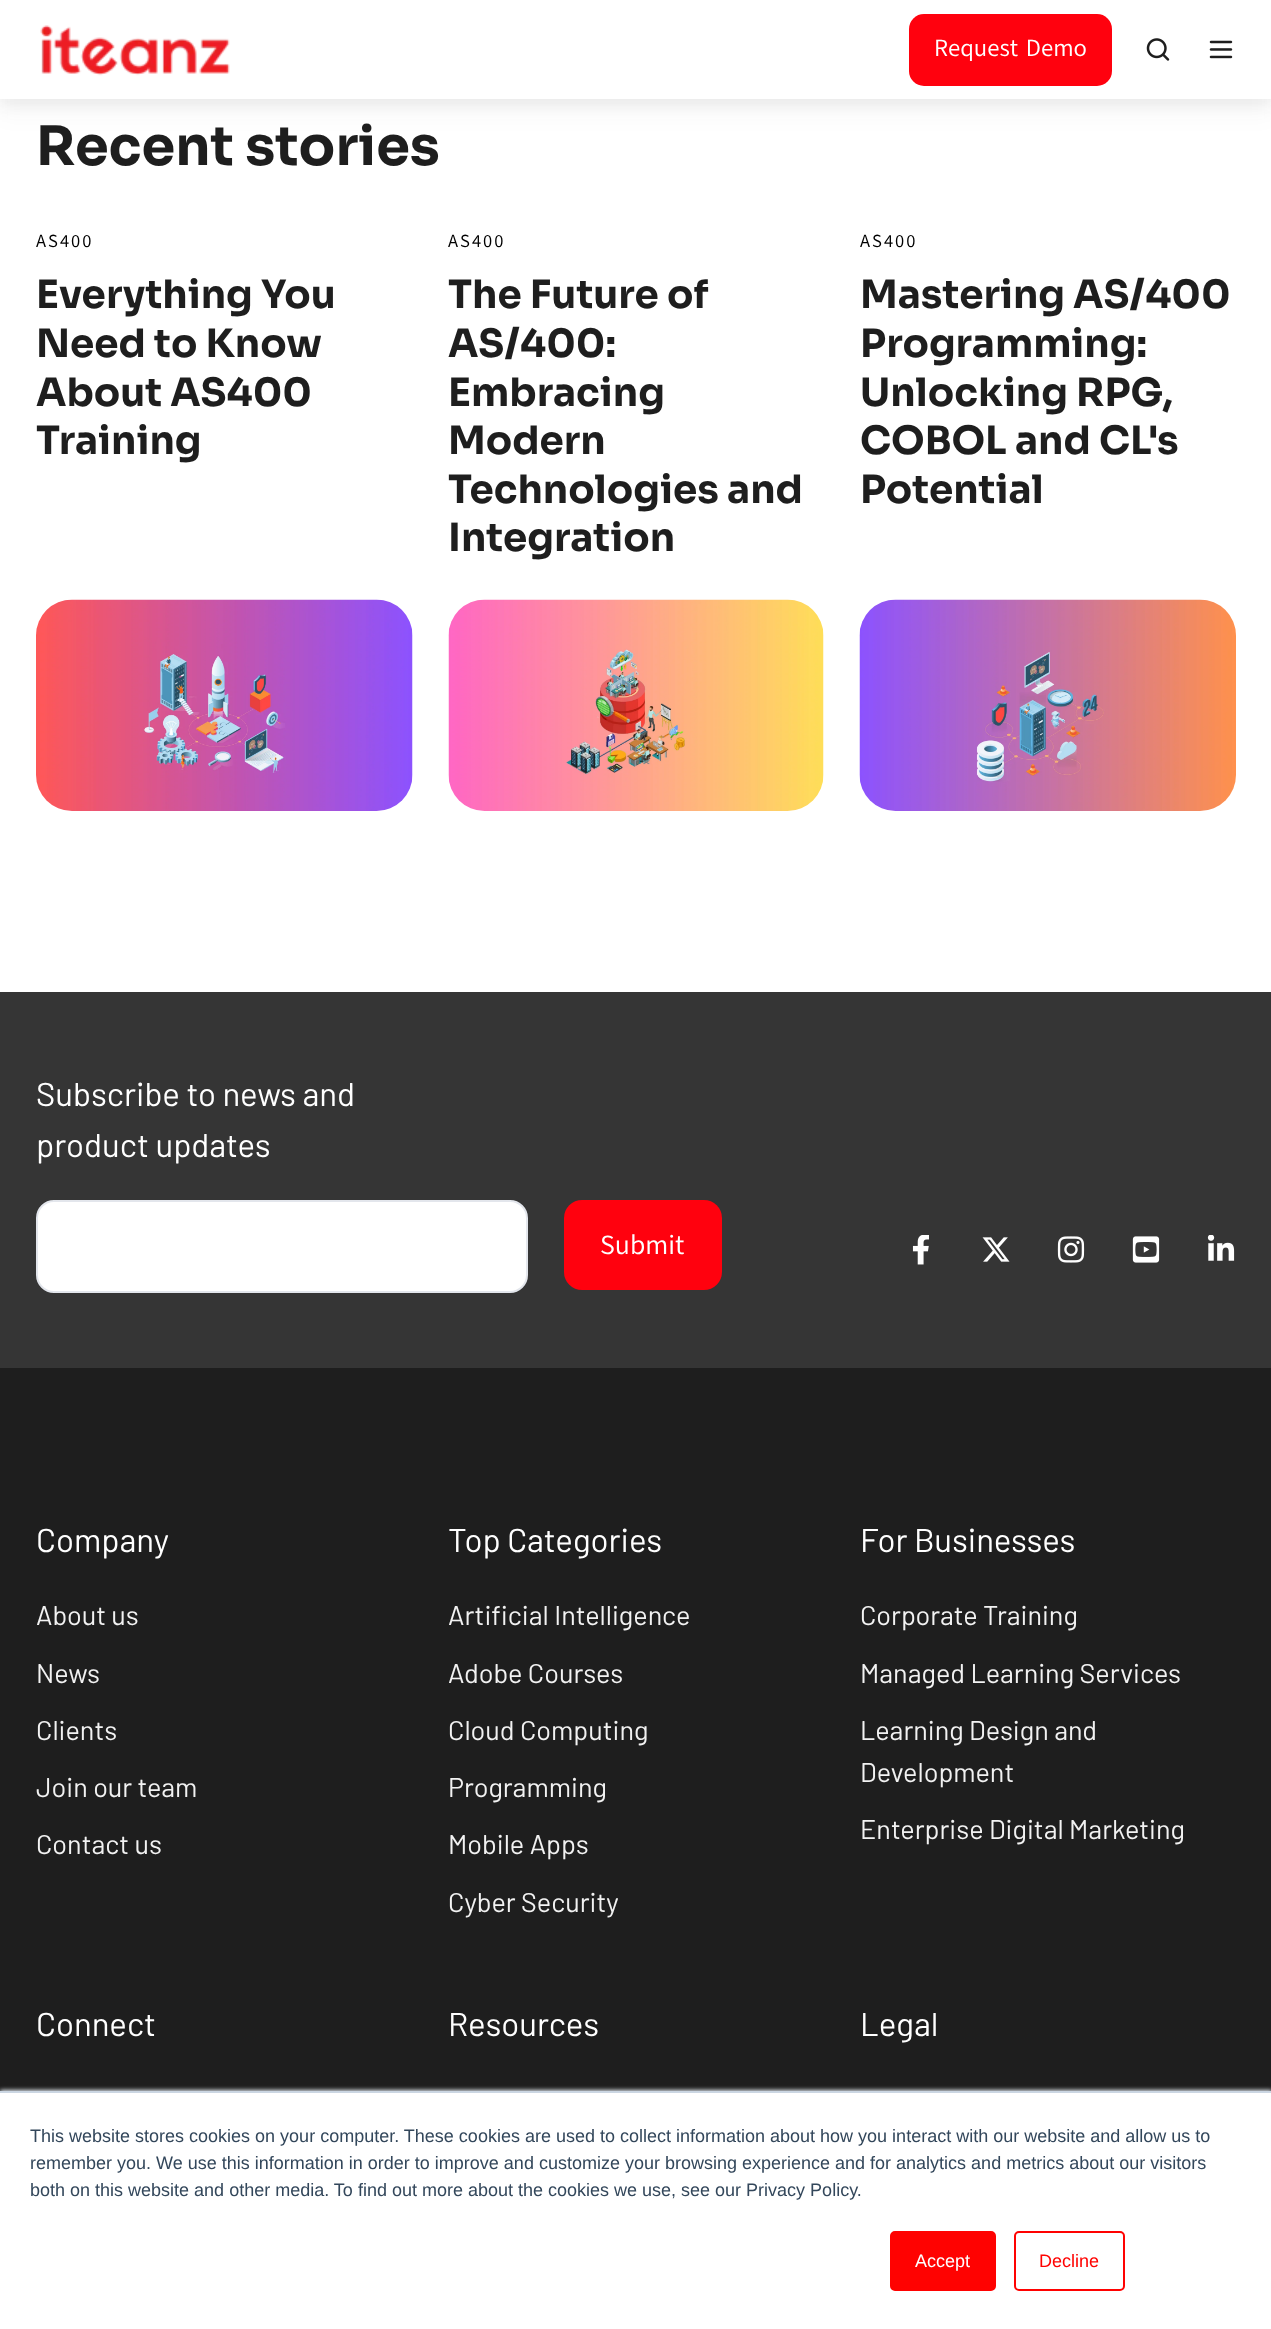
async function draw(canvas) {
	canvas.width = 1271;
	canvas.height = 2329;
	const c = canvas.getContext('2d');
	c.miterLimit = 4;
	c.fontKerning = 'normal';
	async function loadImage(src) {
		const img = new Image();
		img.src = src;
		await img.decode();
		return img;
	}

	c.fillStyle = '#fff';
	c.fillRect(0, 0, 1271, 2329);
	c.fillStyle = '#1e1e1e0d';
	c.filter = 'blur(6px)';
	c.beginPath();
	c.rect(0, 6, 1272, 99);
	c.fill();
	c.filter = 'none';
	c.filter = 'blur(12px)';
	c.beginPath();
	c.rect(0, 12, 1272, 99);
	c.fill();
	c.filter = 'none';
	c.fillStyle = '#fff';
	c.fillRect(0, 0, 1271, 99);
	c.drawImage(await loadImage('img1.png'), 40, 25, 190, 51);
	c.fillStyle = '#ff010e';
	c.beginPath();
	c.roundRect(909, 14, 203, 72, 15);
	c.fill();
	c.font = '24px Akatab';
	c.fillStyle = '#fff';
	c.fillText('Request Demo', 934, 56);
	c.drawImage(await loadImage('img2.png'), 1146, 38, 24, 23);
	c.drawImage(await loadImage('img3.png'), 1209, 40, 24, 19);
	c.font = 'bold 54px Sora';
	c.fillStyle = '#1e1e1e';
	c.fillText('Recent stories', 36, 165);
	c.letterSpacing = '2px';
	c.font = '18px Akatab';
	c.fillStyle = '#000';
	c.fillText('AS400', 36, 247);
	c.letterSpacing = '0px';
	c.font = 'bold 38.9px Sora';
	c.fillStyle = '#1e1e1e';
	for (const [text, x, y] of [
		['Everything You', 36, 308],
		['Need to Know', 36, 357],
		['About AS400', 36, 406],
		['Training', 36, 454],
	]) {
		c.fillText(text, x, y);
	}
	c.drawImage(await loadImage('img4.png'), 36, 599, 377, 212);
	c.letterSpacing = '2px';
	c.font = '18px Akatab';
	c.fillStyle = '#000';
	c.fillText('AS400', 448, 247);
	c.letterSpacing = '0px';
	c.font = 'bold 38.9px Sora';
	c.fillStyle = '#1e1e1e';
	for (const [text, x, y] of [
		['The Future of', 448, 308],
		['AS/400:', 448, 357],
		['Embracing', 448, 406],
		['Modern', 448, 454],
		['Technologies and', 448, 503],
		['Integration', 448, 551],
	]) {
		c.fillText(text, x, y);
	}
	c.drawImage(await loadImage('img5.png'), 448, 599, 376, 212);
	c.letterSpacing = '2px';
	c.font = '18px Akatab';
	c.fillStyle = '#000';
	c.fillText('AS400', 860, 247);
	c.letterSpacing = '0px';
	c.font = 'bold 38.9px Sora';
	c.fillStyle = '#1e1e1e';
	for (const [text, x, y] of [
		['Mastering AS/400', 860, 308],
		['Programming:', 860, 357],
		['Unlocking RPG,', 860, 406],
		['COBOL and CL\'s', 860, 454],
		['Potential', 860, 503],
	]) {
		c.fillText(text, x, y);
	}
	c.drawImage(await loadImage('img6.png'), 859, 599, 377, 212);
	c.fillRect(0, 1368, 1271, 723);
	c.fillStyle = '#353535';
	c.fillRect(0, 992, 1271, 376);
	c.font = '33px Barlow';
	c.fillStyle = '#fff';
	c.fillText('Subscribe to news and', 36, 1106);
	c.fillText('product updates', 36, 1157);
	c.beginPath();
	c.roundRect(37, 1201, 490, 91, 17);
	c.fill();
	c.strokeStyle = '#e3e6ec';
	c.lineWidth = 2;
	c.stroke();
	c.fillStyle = '#ff010e';
	c.beginPath();
	c.roundRect(564, 1200, 158, 90, 18);
	c.fill();
	c.font = '27px Akatab';
	c.fillStyle = '#fff';
	c.fillText('Submit', 600, 1254);
	c.drawImage(await loadImage('img7.png'), 912, 1235, 17, 30);
	c.drawImage(await loadImage('img8.png'), 982, 1237, 28, 25);
	c.drawImage(await loadImage('img9.png'), 1057, 1236, 28, 27);
	c.drawImage(await loadImage('img10.png'), 1132, 1236, 28, 27);
	c.drawImage(await loadImage('img11.png'), 1207, 1235, 28, 26);
	c.font = '33px Barlow';
	c.fillText('Company', 36, 1552);
	c.font = '27px Barlow';
	c.fillStyle = '#f2f2f2';
	for (const [text, x, y] of [
		['About us', 36, 1625],
		['News', 36, 1683],
		['Clients', 36, 1740],
		['Join our team', 36, 1797],
		['Contact us', 36, 1854],
	]) {
		c.fillText(text, x, y);
	}
	c.font = '33px Barlow';
	c.fillStyle = '#fff';
	c.fillText('Top Categories', 448, 1552);
	c.font = '27px Barlow';
	c.fillStyle = '#f2f2f2';
	for (const [text, x, y] of [
		['Artificial Intelligence', 448, 1625],
		['Adobe Courses', 448, 1683],
		['Cloud Computing', 448, 1740],
		['Programming', 448, 1797],
		['Mobile Apps', 448, 1854],
		['Cyber Security', 448, 1912],
	]) {
		c.fillText(text, x, y);
	}
	c.font = '33px Barlow';
	c.fillStyle = '#fff';
	c.fillText('For Businesses', 860, 1552);
	c.font = '27px Barlow';
	c.fillStyle = '#f2f2f2';
	for (const [text, x, y] of [
		['Corporate Training', 860, 1625],
		['Managed Learning Services', 860, 1683],
		['Learning Design and', 860, 1740],
		['Development', 860, 1782],
		['Enterprise Digital Marketing', 860, 1839],
	]) {
		c.fillText(text, x, y);
	}
	c.font = '33px Barlow';
	c.fillStyle = '#fff';
	for (const [text, x, y] of [
		['Connect', 36, 2036],
		['Resources', 448, 2036],
		['Legal', 860, 2036],
	]) {
		c.fillText(text, x, y);
	}
	c.fillStyle = '#eaf0f6';
	c.filter = 'blur(2px)';
	c.beginPath();
	c.rect(0, 2090, 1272, 238);
	c.fill();
	c.filter = 'none';
	c.fillStyle = '#fff';
	c.fillRect(0, 2093, 1271, 236);
	c.fillStyle = '#cbd6e2';
	c.fillRect(0, 2091, 1271, 2);
	c.font = '18px Liberation Sans';
	c.fillStyle = '#33475b';
	for (const [text, x, y] of [
		['This website stores cookies on your computer. These cookies are used to collect information about how you interact with our website and allow us to', 30, 2142],
		['remember you. We use this information in order to improve and customize your browsing experience and for analytics and metrics about our visitors', 30, 2169],
		['both on this website and other media. To find out more about the cookies we use, see our Privacy Policy.', 30, 2196],
	]) {
		c.fillText(text, x, y);
	}
	c.fillStyle = '#ff0201';
	c.beginPath();
	c.roundRect(891, 2232, 104, 58, 4);
	c.fill();
	c.strokeStyle = '#ff0201';
	c.stroke();
	c.fillStyle = '#fff';
	c.fillText('Accept', 915, 2267);
	c.beginPath();
	c.roundRect(1015, 2232, 109, 58, 4);
	c.stroke();
	c.fillStyle = '#ff0201';
	c.fillText('Decline', 1039, 2267);
}

draw(document.querySelector('canvas'));
